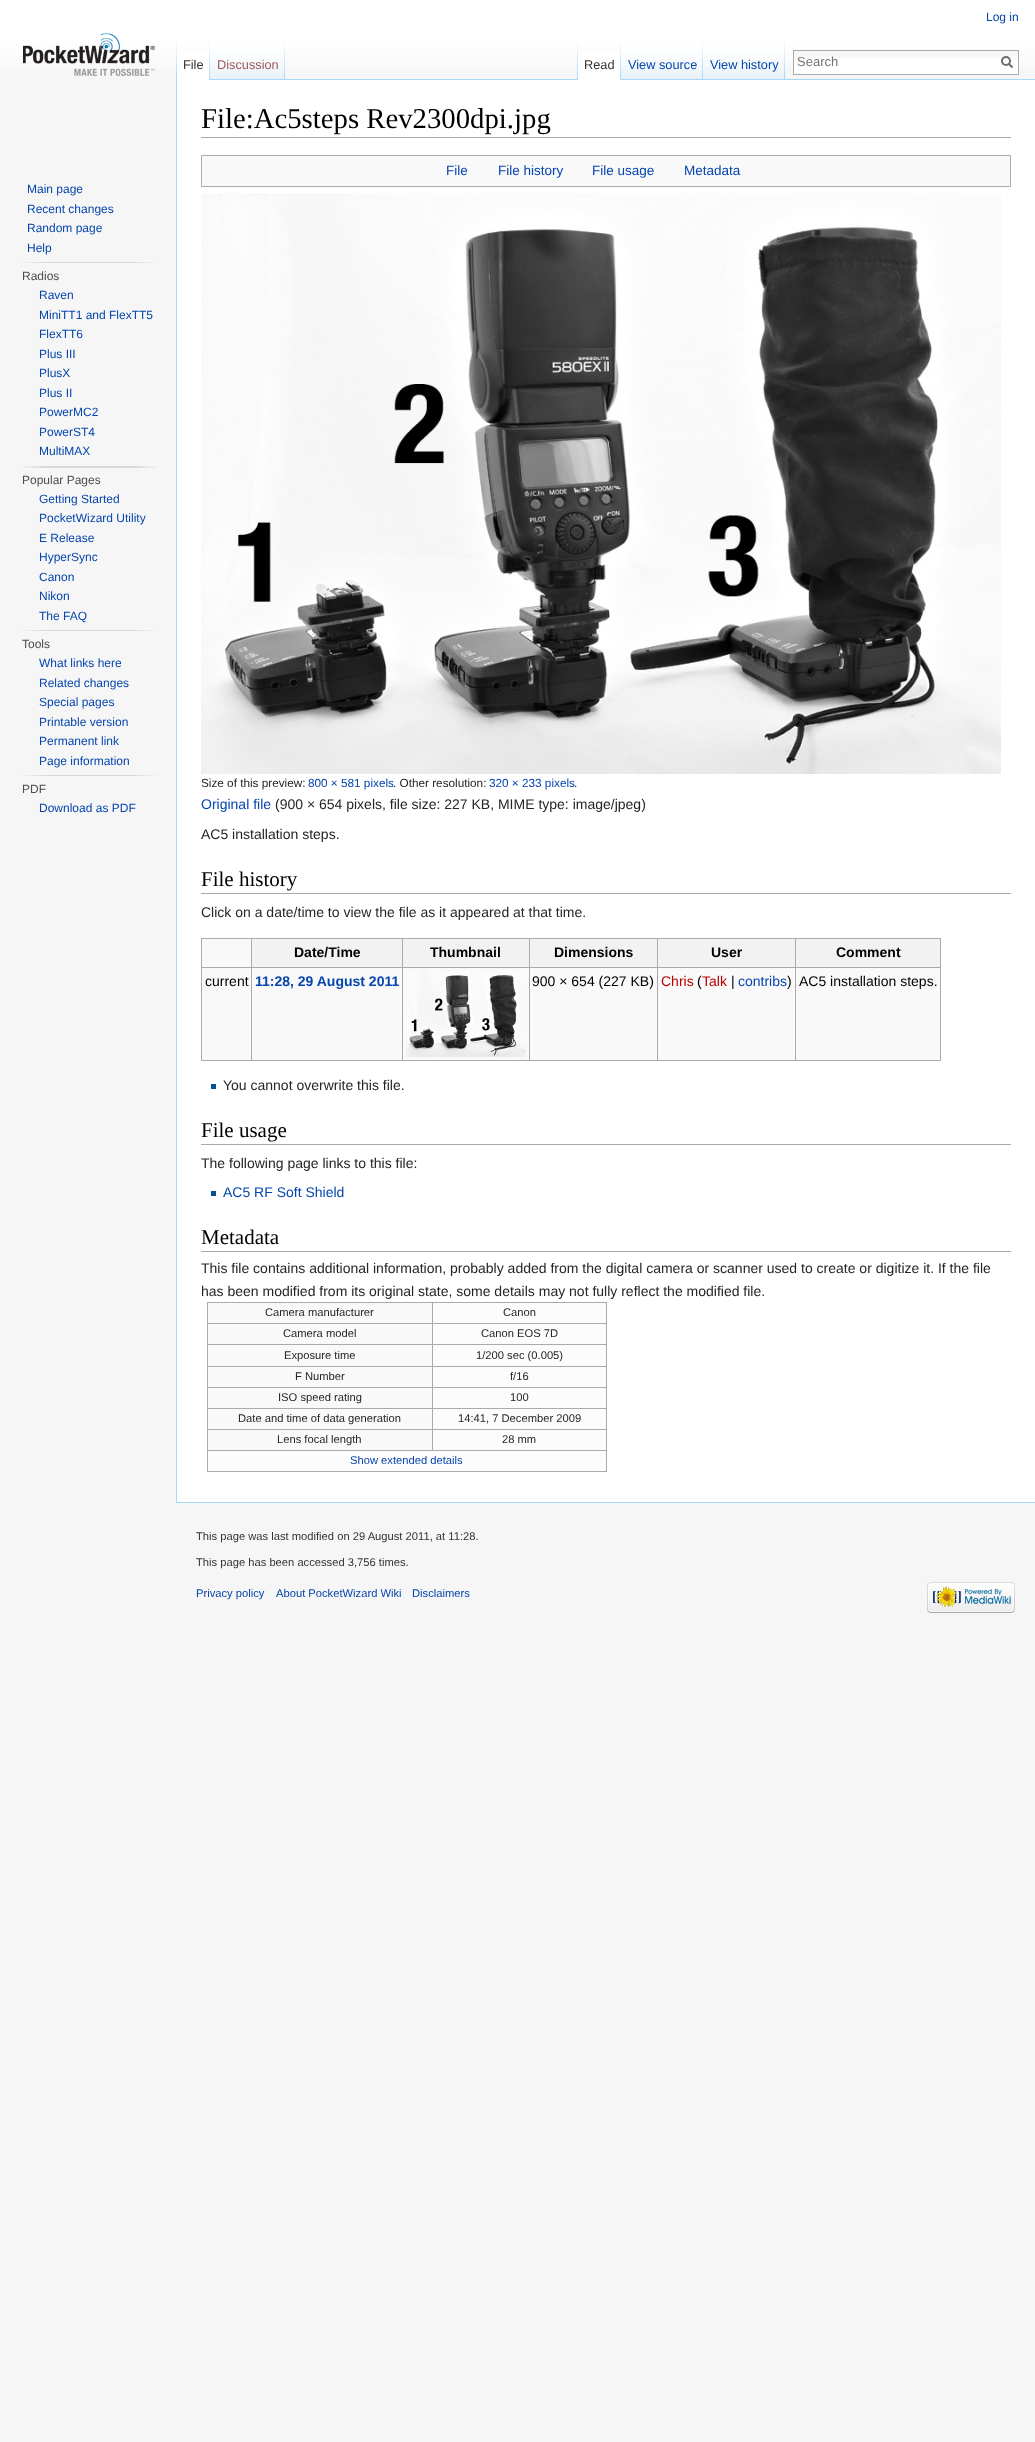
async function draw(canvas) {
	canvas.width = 1035;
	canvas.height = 2442;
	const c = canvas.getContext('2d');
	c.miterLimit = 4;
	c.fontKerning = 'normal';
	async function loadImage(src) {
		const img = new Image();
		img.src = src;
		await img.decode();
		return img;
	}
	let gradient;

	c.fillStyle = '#f6f6f6';
	c.fillRect(0, 0, 1035, 2442);
	gradient = c.createLinearGradient(518, 0, 518, 80);
	gradient.addColorStop(0.5, '#fff');
	gradient.addColorStop(1, '#f6f6f6');
	c.fillStyle = gradient;
	c.fillRect(0, 0, 1035, 69);
	c.font = '12px Liberation Sans';
	c.fillStyle = '#0645ad';
	c.fillText('Log in', 986, 21);
	c.drawImage(await loadImage('img1.png'), 176, 40, 1, 39);
	c.fillStyle = '#fff';
	c.fillRect(177, 51, 32, 29);
	c.drawImage(await loadImage('img2.png'), 209, 40, 1, 40);
	c.font = '12.75px Liberation Sans';
	c.fillStyle = '#333';
	c.fillText('File', 183, 69);
	c.drawImage(await loadImage('img3.png'), 210, 40, 75, 40);
	c.drawImage(await loadImage('img4.png'), 284, 40, 1, 39);
	c.fillStyle = '#a55858';
	c.fillText('Discussion', 217, 69);
	c.drawImage(await loadImage('img1.png'), 577, 40, 1, 39);
	c.fillStyle = '#a7d7f9';
	c.fillRect(285, 79, 750, 1);
	c.fillStyle = '#fff';
	c.fillRect(578, 51, 42, 29);
	c.drawImage(await loadImage('img2.png'), 620, 40, 1, 40);
	c.fillStyle = '#333';
	c.fillText('Read', 584, 69);
	c.drawImage(await loadImage('img5.png'), 621, 40, 82, 40);
	c.drawImage(await loadImage('img4.png'), 702, 40, 1, 39);
	c.fillStyle = '#0645ad';
	c.fillText('View source', 628, 69);
	c.drawImage(await loadImage('img5.png'), 703, 40, 82, 40);
	c.drawImage(await loadImage('img4.png'), 784, 40, 1, 39);
	c.fillText('View history', 710, 69);
	c.fillStyle = '#fff';
	c.fillRect(794, 59, 224, 15);
	c.drawImage(await loadImage('img6.png'), 794, 51, 224, 8);
	c.strokeStyle = '#aaa';
	c.strokeRect(793.5, 50.5, 225, 24);
	c.font = '13px Liberation Sans';
	c.fillStyle = '#757575';
	c.fillText('Search', 797, 66);
	c.beginPath();
	c.moveTo(1012.5, 67.5);
	c.lineTo(1008.5, 63.5);
	c.strokeStyle = '#6c6c6c';
	c.lineWidth = 2;
	c.stroke();
	c.beginPath();
	c.arc(1006, 61, 4, 0, 2 * Math.PI);
	c.stroke();
	c.drawImage(await loadImage('img7.png'), 23, 33, 132, 43);
	c.font = '12px Liberation Sans';
	c.fillStyle = '#0645ad';
	for (const [text, x, y] of [
		['Main page', 27, 193],
		['Recent changes', 27, 213],
		['Random page', 27, 232],
		['Help', 27, 252],
	]) {
		c.fillText(text, x, y);
	}
	c.drawImage(await loadImage('img8.png'), 22, 262, 135, 1);
	c.fillStyle = '#4d4d4d';
	c.fillText('Radios', 22, 280);
	c.fillStyle = '#0645ad';
	for (const [text, x, y] of [
		['Raven', 39, 299],
		['MiniTT1 and FlexTT5', 39, 319],
		['FlexTT6', 39, 338],
		['Plus III', 39, 358],
		['PlusX', 39, 377],
		['Plus II', 39, 397],
		['PowerMC2', 39, 416],
		['PowerST4', 39, 436],
		['MultiMAX', 39, 455],
	]) {
		c.fillText(text, x, y);
	}
	c.drawImage(await loadImage('img9.png'), 22, 466, 135, 2);
	c.fillStyle = '#4d4d4d';
	c.fillText('Popular Pages', 22, 484);
	c.fillStyle = '#0645ad';
	for (const [text, x, y] of [
		['Getting Started', 39, 503],
		['PocketWizard Utility', 39, 522],
		['E Release', 39, 542],
		['HyperSync', 39, 561],
		['Canon', 39, 581],
		['Nikon', 39, 600],
		['The FAQ', 39, 620],
	]) {
		c.fillText(text, x, y);
	}
	c.drawImage(await loadImage('img8.png'), 22, 630, 135, 1);
	c.fillStyle = '#4d4d4d';
	c.fillText('Tools', 22, 648);
	c.fillStyle = '#0645ad';
	for (const [text, x, y] of [
		['What links here', 39, 667],
		['Related changes', 39, 687],
		['Special pages', 39, 706],
		['Printable version', 39, 726],
		['Permanent link', 39, 745],
		['Page information', 39, 765],
	]) {
		c.fillText(text, x, y);
	}
	c.drawImage(await loadImage('img8.png'), 22, 775, 135, 1);
	c.fillStyle = '#4d4d4d';
	c.fillText('PDF', 22, 793);
	c.fillStyle = '#0645ad';
	c.fillText('Download as PDF', 39, 812);
	for (const [x, y, w, h, color] of [
		[177, 80, 858, 1422, '#fff'],
		[176, 1502, 859, 1, '#a7d7f9'],
		[176, 79, 1, 1424, '#a7d7f9'],
		[201, 137, 810, 1, '#aaa'],
	]) {
		c.fillStyle = color;
		c.fillRect(x, y, w, h);
	}
	c.font = '28.75px Liberation Serif';
	c.fillStyle = '#000';
	c.fillText('File:Ac5steps Rev2300dpi.jpg', 201, 128);
	c.fillStyle = '#f9f9f9';
	c.beginPath();
	c.rect(201.5, 155.5, 809, 31);
	c.fill();
	c.strokeStyle = '#aaa';
	c.lineWidth = 1;
	c.stroke();
	c.font = '13.5px Liberation Sans';
	c.fillStyle = '#0645ad';
	for (const [text, x, y] of [
		['File', 446, 175],
		['File history', 498, 175],
		['File usage', 592, 175],
		['Metadata', 684, 175],
	]) {
		c.fillText(text, x, y);
	}
	c.drawImage(await loadImage('img10.png'), 201, 193, 800, 581);
	c.font = '11.75px Liberation Sans';
	c.fillStyle = '#252525';
	c.fillText('Size of this preview:', 201, 787);
	c.fillStyle = '#0645ad';
	c.fillText('800 × 581 pixels', 308, 787);
	c.fillStyle = '#252525';
	c.fillText('. Other resolution:', 393, 787);
	c.fillStyle = '#0645ad';
	c.fillText('320 × 233 pixels', 489, 787);
	c.fillStyle = '#252525';
	c.fillText('.', 574, 787);
	c.font = '14px Liberation Sans';
	c.fillStyle = '#0645ad';
	c.fillText('Original file', 201, 809);
	c.fillStyle = '#252525';
	c.fillText('(900 × 654 pixels, file size: 227 KB, MIME type: image/jpeg)', 275, 809);
	c.fillText('AC5 installation steps.', 201, 839);
	c.fillStyle = '#aaa';
	c.fillRect(201, 893, 810, 1);
	c.font = '21px Liberation Serif';
	c.fillStyle = '#000';
	c.fillText('File history', 201, 886);
	c.font = '14px Liberation Sans';
	c.fillStyle = '#252525';
	c.fillText('Click on a date/time to view the file as it appeared at that time.', 201, 917);
	for (const [x, y, w, h, color] of [
		[202, 939, 738, 121, '#f9f9f9'],
		[201, 938, 740, 1, '#aaa'],
		[940, 938, 1, 123, '#aaa'],
		[201, 1060, 740, 1, '#aaa'],
		[201, 938, 1, 123, '#aaa'],
		[252, 939, 150, 28, '#f2f2f2'],
		[795, 967, 146, 1, '#aaa'],
		[795, 967, 1, 94, '#aaa'],
		[657, 967, 139, 1, '#aaa'],
		[657, 967, 1, 94, '#aaa'],
		[529, 967, 129, 1, '#aaa'],
		[529, 967, 1, 94, '#aaa'],
		[402, 967, 128, 1, '#aaa'],
		[402, 967, 1, 94, '#aaa'],
		[251, 967, 152, 1, '#aaa'],
		[251, 967, 1, 94, '#aaa'],
		[201, 967, 51, 1, '#aaa'],
		[251, 938, 1, 30, '#aaa'],
	]) {
		c.fillStyle = color;
		c.fillRect(x, y, w, h);
	}
	c.font = 'bold 14px Liberation Sans';
	c.fillStyle = '#000';
	c.fillText('Date/Time', 294, 957);
	c.fillStyle = '#f2f2f2';
	c.fillRect(403, 939, 126, 28);
	c.fillStyle = '#aaa';
	c.fillRect(402, 938, 1, 30);
	c.fillStyle = '#000';
	c.fillText('Thumbnail', 430, 957);
	c.fillStyle = '#f2f2f2';
	c.fillRect(530, 939, 127, 28);
	c.fillStyle = '#aaa';
	c.fillRect(529, 938, 1, 30);
	c.fillStyle = '#000';
	c.fillText('Dimensions', 554, 957);
	c.fillStyle = '#f2f2f2';
	c.fillRect(658, 939, 137, 28);
	c.fillStyle = '#aaa';
	c.fillRect(657, 938, 1, 30);
	c.fillStyle = '#000';
	c.fillText('User', 711, 957);
	c.fillStyle = '#f2f2f2';
	c.fillRect(796, 939, 144, 28);
	c.fillStyle = '#aaa';
	c.fillRect(795, 938, 1, 30);
	c.fillStyle = '#000';
	c.fillText('Comment', 836, 957);
	c.font = '14px Liberation Sans';
	c.fillText('current', 205, 986);
	c.font = 'bold 14px Liberation Sans';
	c.fillStyle = '#0645ad';
	c.fillText('11:28, 29 August 2011', 255, 986);
	c.drawImage(await loadImage('img11.png'), 406, 970, 120, 87);
	c.font = '14px Liberation Sans';
	c.fillStyle = '#000';
	c.fillText('900 × 654 (227 KB)', 532, 986);
	c.fillStyle = '#ba0000';
	c.fillText('Chris', 661, 986);
	c.fillStyle = '#000';
	c.fillText('(', 697, 986);
	c.fillStyle = '#ba0000';
	c.fillText('Talk', 702, 986);
	c.fillStyle = '#000';
	c.fillText('|', 731, 986);
	c.fillStyle = '#0645ad';
	c.fillText('contribs', 738, 986);
	c.fillStyle = '#000';
	c.fillText(')', 787, 986);
	c.fillText('AC5 installation steps.', 799, 986);
	c.fillStyle = '#00528c';
	c.fillRect(211, 1084, 5, 5);
	c.fillStyle = '#252525';
	c.fillText('You cannot overwrite this file.', 223, 1090);
	c.fillStyle = '#aaa';
	c.fillRect(201, 1144, 810, 1);
	c.font = '21px Liberation Serif';
	c.fillStyle = '#000';
	c.fillText('File usage', 201, 1137);
	c.font = '14px Liberation Sans';
	c.fillStyle = '#252525';
	c.fillText('The following page links to this file:', 201, 1168);
	c.fillStyle = '#00528c';
	c.fillRect(211, 1191, 5, 5);
	c.fillStyle = '#0645ad';
	c.fillText('AC5 RF Soft Shield', 223, 1197);
	c.fillStyle = '#aaa';
	c.fillRect(201, 1251, 810, 1);
	c.font = '21px Liberation Serif';
	c.fillStyle = '#000';
	c.fillText('Metadata', 201, 1244);
	c.font = '14px Liberation Sans';
	c.fillStyle = '#252525';
	c.fillText('This file contains additional information, probably added from the digital camera or scanner used to create or digitize it. If the file', 201, 1273);
	c.fillText('has been modified from its original state, some details may not fully reflect the modified file.', 201, 1296);
	for (const [x, y, w, h, color] of [
		[208, 1303, 224, 20, '#f9f9f9'],
		[432, 1302, 175, 1, '#aaa'],
		[432, 1323, 175, 1, '#aaa'],
		[432, 1344, 175, 1, '#aaa'],
		[432, 1366, 175, 1, '#aaa'],
		[432, 1387, 175, 1, '#aaa'],
		[432, 1408, 175, 1, '#aaa'],
		[432, 1429, 175, 1, '#aaa'],
		[207, 1450, 400, 1, '#aaa'],
		[432, 1429, 1, 22, '#aaa'],
		[207, 1429, 226, 1, '#aaa'],
		[432, 1408, 1, 22, '#aaa'],
		[207, 1408, 226, 1, '#aaa'],
		[432, 1387, 1, 22, '#aaa'],
		[207, 1387, 226, 1, '#aaa'],
		[432, 1366, 1, 22, '#aaa'],
		[207, 1366, 226, 1, '#aaa'],
		[432, 1344, 1, 23, '#aaa'],
		[207, 1344, 226, 1, '#aaa'],
		[432, 1323, 1, 22, '#aaa'],
		[207, 1323, 226, 1, '#aaa'],
		[432, 1302, 1, 22, '#aaa'],
		[207, 1302, 226, 1, '#aaa'],
		[606, 1450, 1, 22, '#aaa'],
		[207, 1471, 400, 1, '#aaa'],
		[207, 1450, 1, 22, '#aaa'],
		[207, 1429, 1, 22, '#aaa'],
		[207, 1408, 1, 22, '#aaa'],
		[207, 1387, 1, 22, '#aaa'],
		[207, 1366, 1, 22, '#aaa'],
		[207, 1344, 1, 23, '#aaa'],
		[207, 1323, 1, 22, '#aaa'],
		[207, 1302, 1, 22, '#aaa'],
	]) {
		c.fillStyle = color;
		c.fillRect(x, y, w, h);
	}
	c.font = '11.2px Liberation Sans';
	c.fillStyle = '#252525';
	c.fillText('Camera manufacturer', 265, 1316);
	for (const [x, y, w, h, color] of [
		[433, 1303, 173, 20, '#fcfcfc'],
		[606, 1429, 1, 22, '#aaa'],
		[606, 1408, 1, 22, '#aaa'],
		[606, 1387, 1, 22, '#aaa'],
		[606, 1366, 1, 22, '#aaa'],
		[606, 1344, 1, 23, '#aaa'],
		[606, 1323, 1, 22, '#aaa'],
		[606, 1302, 1, 22, '#aaa'],
	]) {
		c.fillStyle = color;
		c.fillRect(x, y, w, h);
	}
	c.fillStyle = '#252525';
	c.fillText('Canon', 503, 1316);
	c.fillStyle = '#f9f9f9';
	c.fillRect(208, 1324, 224, 20);
	c.fillStyle = '#252525';
	c.fillText('Camera model', 283, 1337);
	c.fillStyle = '#fcfcfc';
	c.fillRect(433, 1324, 173, 20);
	c.fillStyle = '#252525';
	c.fillText('Canon EOS 7D', 481, 1337);
	c.fillStyle = '#f9f9f9';
	c.fillRect(208, 1345, 224, 21);
	c.fillStyle = '#252525';
	c.fillText('Exposure time', 284, 1359);
	c.fillStyle = '#fcfcfc';
	c.fillRect(433, 1345, 173, 21);
	c.fillStyle = '#252525';
	c.fillText('1/200 sec (0.005)', 476, 1359);
	c.fillStyle = '#f9f9f9';
	c.fillRect(208, 1367, 224, 20);
	c.fillStyle = '#252525';
	c.fillText('F Number', 295, 1380);
	c.fillStyle = '#fcfcfc';
	c.fillRect(433, 1367, 173, 20);
	c.fillStyle = '#252525';
	c.fillText('f/16', 510, 1380);
	c.fillStyle = '#f9f9f9';
	c.fillRect(208, 1388, 224, 20);
	c.fillStyle = '#252525';
	c.fillText('ISO speed rating', 278, 1401);
	c.fillStyle = '#fcfcfc';
	c.fillRect(433, 1388, 173, 20);
	c.fillStyle = '#252525';
	c.fillText('100', 510, 1401);
	c.fillStyle = '#f9f9f9';
	c.fillRect(208, 1409, 224, 20);
	c.fillStyle = '#252525';
	c.fillText('Date and time of data generation', 238, 1422);
	c.fillStyle = '#fcfcfc';
	c.fillRect(433, 1409, 173, 20);
	c.fillStyle = '#252525';
	c.fillText('14:41, 7 December 2009', 458, 1422);
	c.fillStyle = '#f9f9f9';
	c.fillRect(208, 1430, 224, 20);
	c.fillStyle = '#252525';
	c.fillText('Lens focal length', 277, 1443);
	c.fillStyle = '#fcfcfc';
	c.fillRect(433, 1430, 173, 20);
	c.fillStyle = '#252525';
	c.fillText('28 mm', 502, 1443);
	c.fillStyle = '#fcfcfc';
	c.fillRect(208, 1451, 398, 20);
	c.fillStyle = '#0645ad';
	c.fillText('Show extended details', 350, 1464);
	c.fillStyle = '#333';
	c.fillText('This page was last modified on 29 August 2011, at 11:28.', 196, 1540);
	c.fillText('This page has been accessed 3,756 times.', 196, 1566);
	c.fillStyle = '#0645ad';
	for (const [text, x, y] of [
		['Privacy policy', 196, 1597],
		['About PocketWizard Wiki', 276, 1597],
		['Disclaimers', 412, 1597],
	]) {
		c.fillText(text, x, y);
	}
	c.drawImage(await loadImage('img12.png'), 927, 1582, 88, 31);
}

draw(document.querySelector('canvas'));
